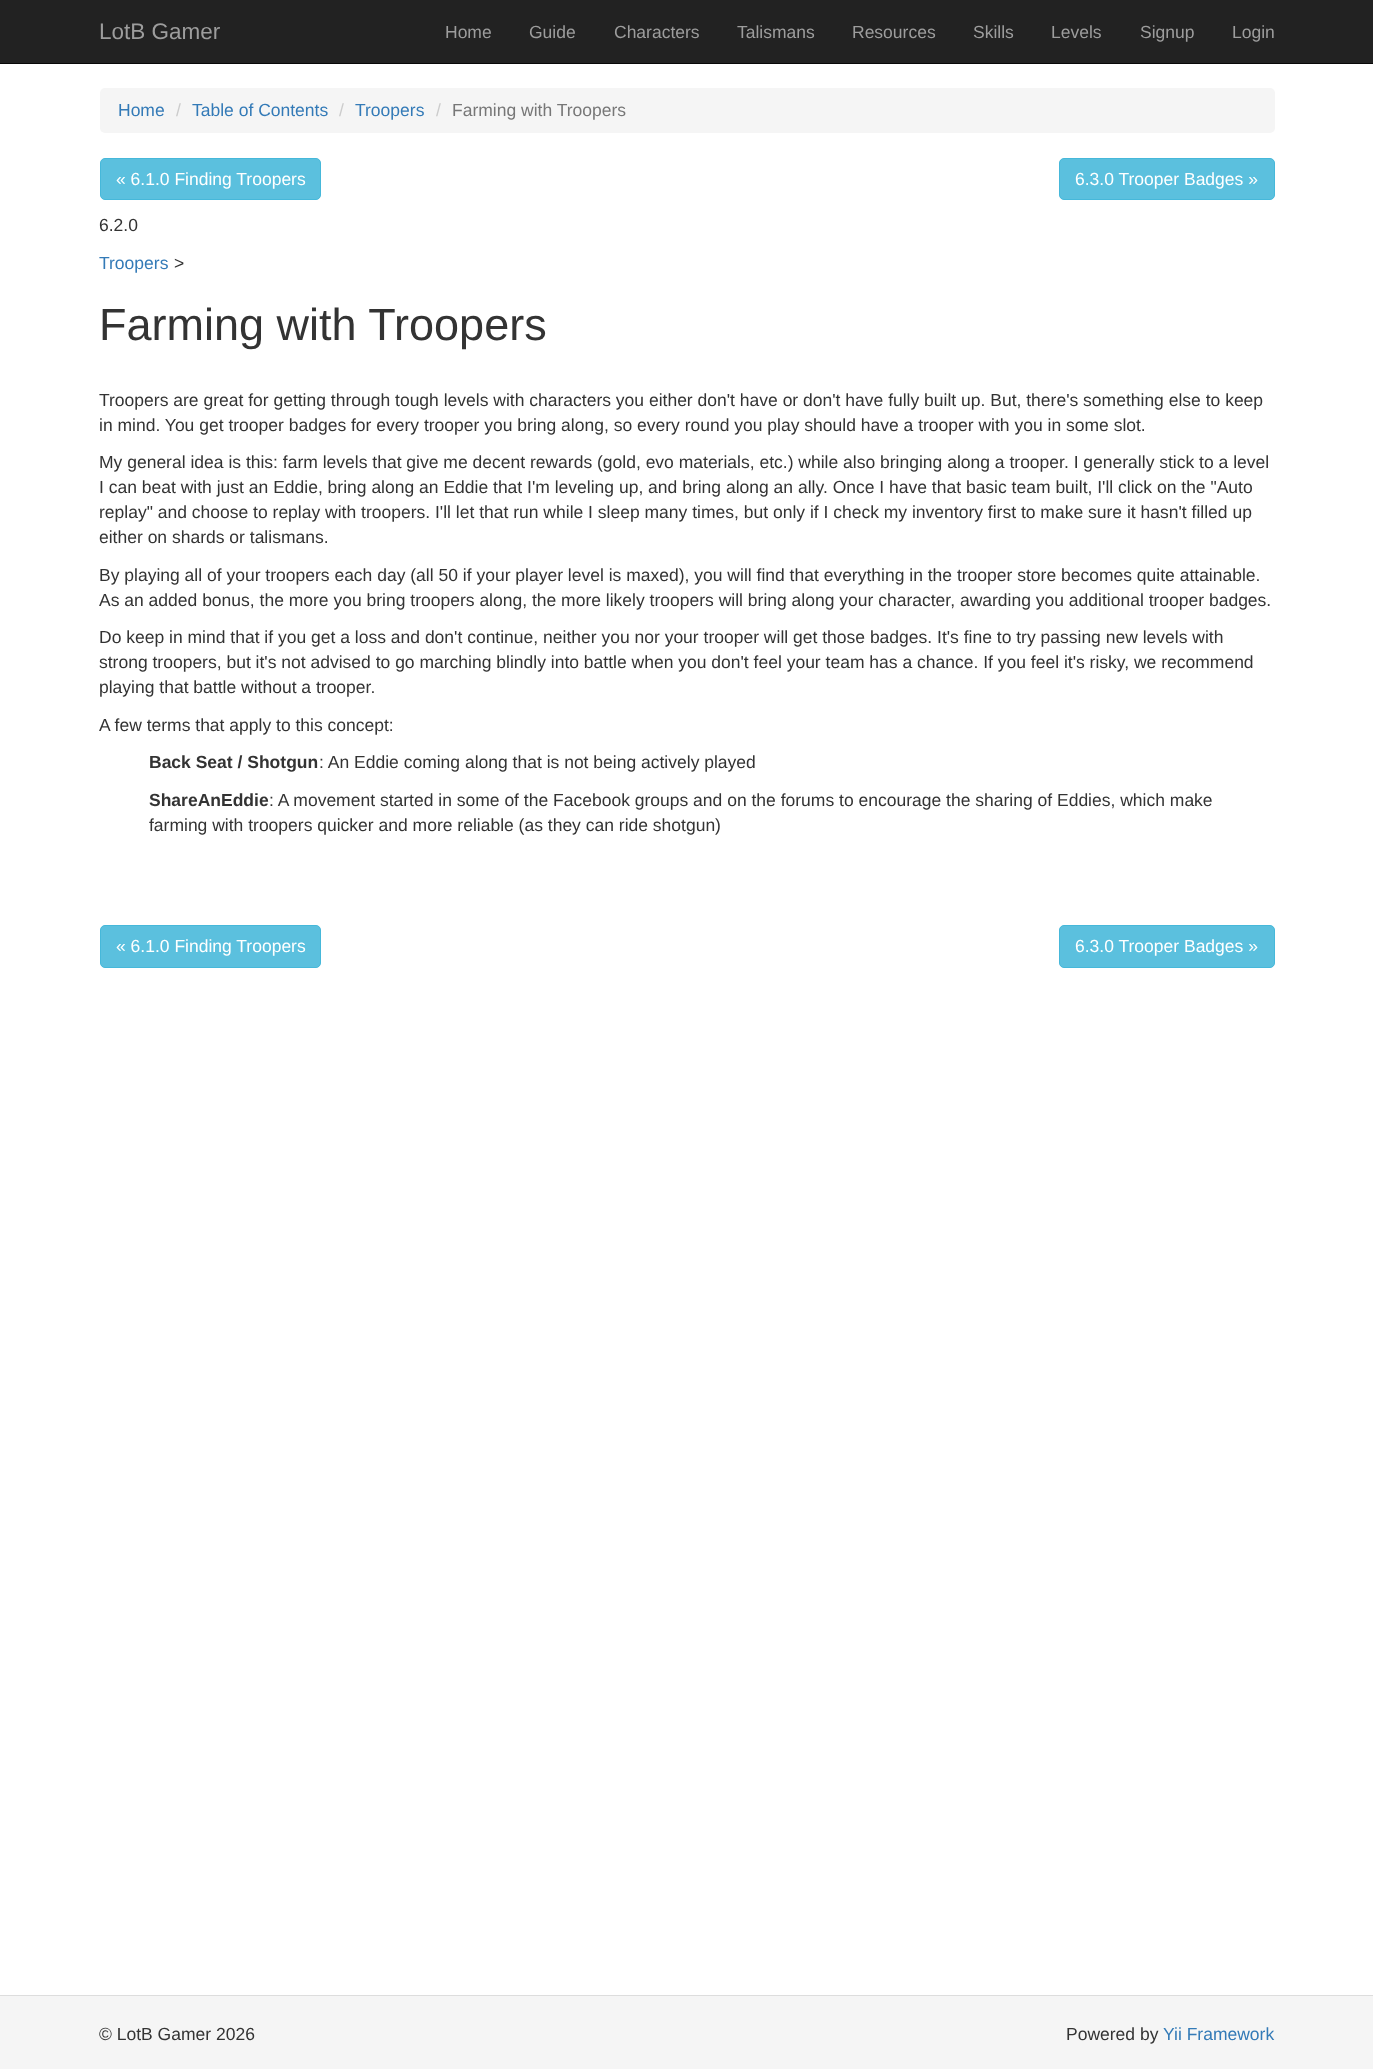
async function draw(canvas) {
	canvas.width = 1373;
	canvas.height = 2069;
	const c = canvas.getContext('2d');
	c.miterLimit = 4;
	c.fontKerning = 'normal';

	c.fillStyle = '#fff';
	c.fillRect(0, 0, 1373, 2069);
	c.fillStyle = '#222';
	c.fillRect(0, 0, 1373, 63);
	c.fillStyle = '#080808';
	c.fillRect(0, 63, 1373, 1);
	c.font = '22.5px Liberation Sans';
	c.fillStyle = '#9d9d9d';
	c.fillText('LotB Gamer', 99, 39);
	c.font = '17.5px Liberation Sans';
	for (const [text, x, y] of [
		['Home', 445, 38],
		['Guide', 529, 38],
		['Characters', 614, 38],
		['Talismans', 737, 38],
		['Resources', 852, 38],
		['Skills', 973, 38],
		['Levels', 1051, 38],
		['Signup', 1140, 38],
		['Login', 1232, 38],
	]) {
		c.fillText(text, x, y);
	}
	c.fillStyle = '#f5f5f5';
	c.beginPath();
	c.roundRect(100, 88, 1175, 45, 5);
	c.fill();
	c.fillStyle = '#337ab7';
	c.fillText('Home', 118, 116);
	c.fillStyle = '#ccc';
	c.fillText('/', 176, 116);
	c.fillStyle = '#337ab7';
	c.fillText('Table of Contents', 192, 116);
	c.fillStyle = '#ccc';
	c.fillText('/', 339, 116);
	c.fillStyle = '#337ab7';
	c.fillText('Troopers', 355, 116);
	c.fillStyle = '#ccc';
	c.fillText('/', 436, 116);
	c.fillStyle = '#777';
	c.fillText('Farming with Troopers', 452, 116);
	c.fillStyle = '#5bc0de';
	c.beginPath();
	c.roundRect(100.5, 158.5, 220, 41, 4.5);
	c.fill();
	c.strokeStyle = '#46b8da';
	c.stroke();
	c.fillStyle = '#fff';
	c.fillText('« 6.1.0 Finding Troopers', 116, 185);
	c.fillStyle = '#5bc0de';
	c.beginPath();
	c.roundRect(1059.5, 158.5, 215, 41, 4.5);
	c.fill();
	c.stroke();
	c.fillStyle = '#fff';
	c.fillText('6.3.0 Trooper Badges »', 1075, 185);
	c.fillStyle = '#333';
	c.fillText('6.2.0', 99, 231);
	c.fillStyle = '#337ab7';
	c.fillText('Troopers', 99, 269);
	c.fillStyle = '#333';
	c.fillText('>', 174, 269);
	c.font = '45px Liberation Sans';
	c.fillText('Farming with Troopers', 99, 340);
	c.font = '17.5px Liberation Sans';
	for (const [text, x, y] of [
		['Troopers are great for getting through tough levels with characters you either don\'t have or don\'t have fully built up. But, there\'s something else to keep', 99, 406],
		['in mind. You get trooper badges for every trooper you bring along, so every round you play should have a trooper with you in some slot.', 99, 431],
		['My general idea is this: farm levels that give me decent rewards (gold, evo materials, etc.) while also bringing along a trooper. I generally stick to a level', 99, 468],
		['I can beat with just an Eddie, bring along an Eddie that I\'m leveling up, and bring along an ally. Once I have that basic team built, I\'ll click on the "Auto', 99, 493],
		['replay" and choose to replay with troopers. I\'ll let that run while I sleep many times, but only if I check my inventory first to make sure it hasn\'t filled up', 99, 518],
		['either on shards or talismans.', 99, 543],
		['By playing all of your troopers each day (all 50 if your player level is maxed), you will find that everything in the trooper store becomes quite attainable.', 99, 581],
		['As an added bonus, the more you bring troopers along, the more likely troopers will bring along your character, awarding you additional trooper badges.', 99, 606],
		['Do keep in mind that if you get a loss and don\'t continue, neither you nor your trooper will get those badges. It\'s fine to try passing new levels with', 99, 643],
		['strong troopers, but it\'s not advised to go marching blindly into battle when you don\'t feel your team has a chance. If you feel it\'s risky, we recommend', 99, 668],
		['playing that battle without a trooper.', 99, 693],
		['A few terms that apply to this concept:', 99, 731],
	]) {
		c.fillText(text, x, y);
	}
	c.font = 'bold 17.5px Liberation Sans';
	c.fillText('Back Seat / Shotgun', 149, 768);
	c.font = '17.5px Liberation Sans';
	c.fillText(': An Eddie coming along that is not being actively played', 319, 768);
	c.font = 'bold 17.5px Liberation Sans';
	c.fillText('ShareAnEddie', 149, 806);
	c.font = '17.5px Liberation Sans';
	c.fillText(': A movement started in some of the Facebook groups and on the forums to encourage the sharing of Eddies, which make', 269, 806);
	c.fillText('farming with troopers quicker and more reliable (as they can ride shotgun)', 149, 831);
	c.fillStyle = '#5bc0de';
	c.beginPath();
	c.roundRect(100.5, 925.5, 220, 42, 4.5);
	c.fill();
	c.stroke();
	c.fillStyle = '#fff';
	c.fillText('« 6.1.0 Finding Troopers', 116, 952);
	c.fillStyle = '#5bc0de';
	c.beginPath();
	c.roundRect(1059.5, 925.5, 215, 42, 4.5);
	c.fill();
	c.stroke();
	c.fillStyle = '#fff';
	c.fillText('6.3.0 Trooper Badges »', 1075, 952);
	c.fillStyle = '#f5f5f5';
	c.fillRect(0, 1996, 1373, 73);
	c.fillStyle = '#ddd';
	c.fillRect(0, 1995, 1373, 1);
	c.fillStyle = '#333';
	c.fillText('© LotB Gamer 2026', 99, 2040);
	c.fillText('Powered by', 1066, 2040);
	c.fillStyle = '#337ab7';
	c.fillText('Yii Framework', 1163, 2040);
}

draw(document.querySelector('canvas'));
